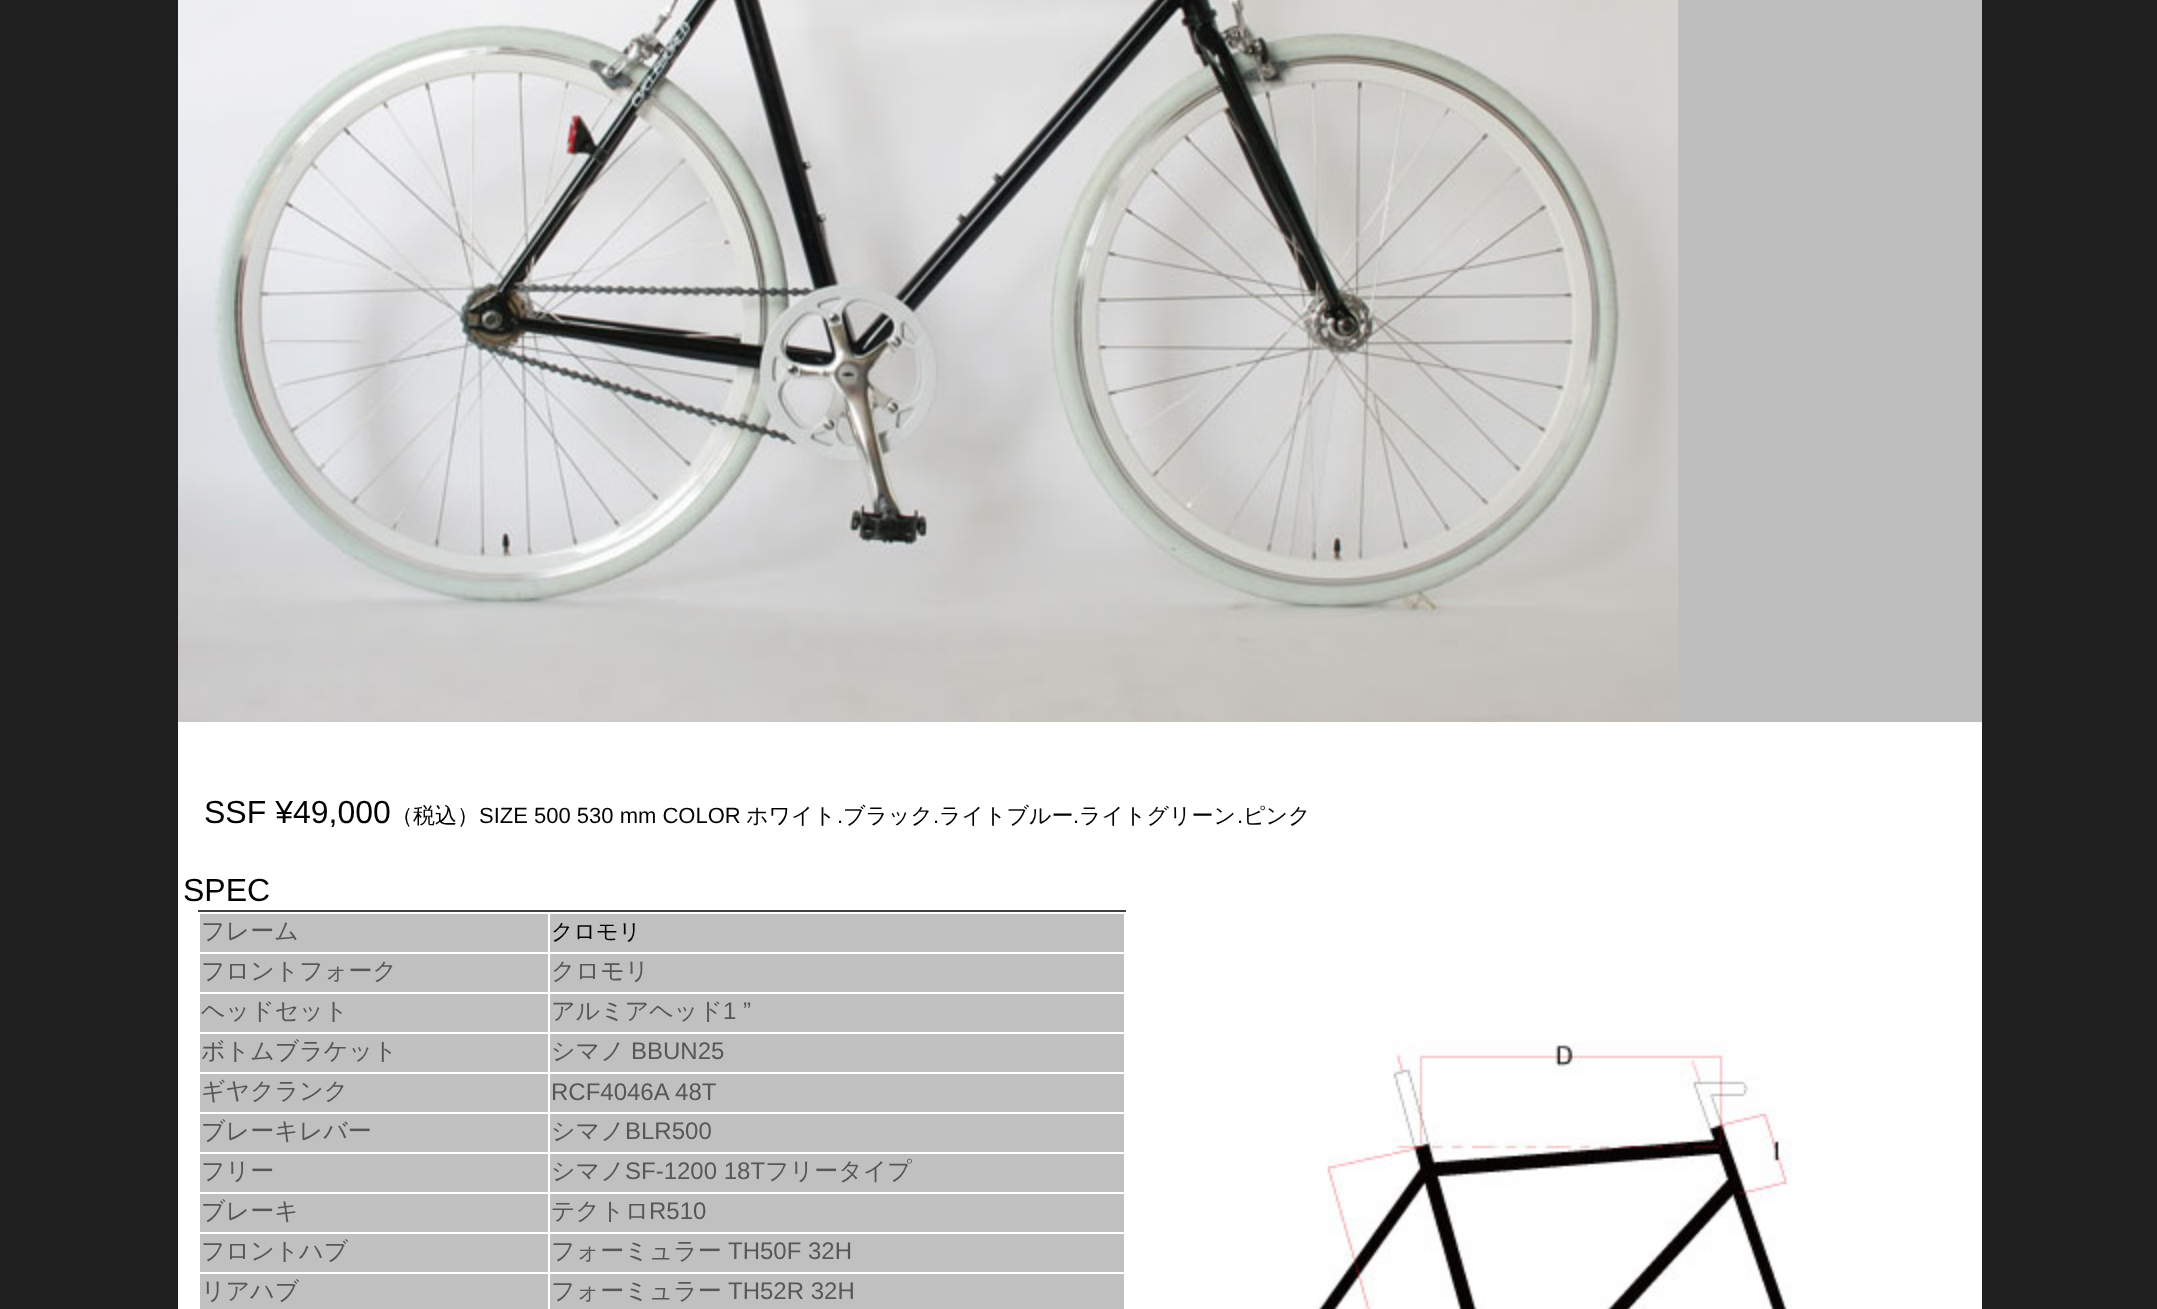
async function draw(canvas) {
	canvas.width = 2157;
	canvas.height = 1309;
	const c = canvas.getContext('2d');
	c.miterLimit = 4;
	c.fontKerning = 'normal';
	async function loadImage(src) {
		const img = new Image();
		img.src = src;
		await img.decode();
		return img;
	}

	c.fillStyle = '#1f1f1f';
	c.fillRect(0, 0, 2157, 1309);
	c.drawImage(await loadImage('img1.png'), 178, 0, 1500, 722);
	c.fillStyle = '#bebebe';
	c.fillRect(1678, 0, 304, 722);
	c.fillStyle = '#fff';
	c.fillRect(178, 722, 1804, 152);
	c.font = '32px Liberation Sans';
	c.fillStyle = '#030303';
	c.fillText('SSF ¥49,000', 204, 823);
	c.font = '500 22px WenQuanYi Zen Hei';
	c.fillText('（税込）', 391, 823);
	c.font = '22px Liberation Sans';
	c.fillText('SIZE 500 530 mm COLOR', 479, 823);
	c.font = '500 22px WenQuanYi Zen Hei';
	c.fillText('ホワイト', 746, 823);
	c.font = '22px Liberation Sans';
	c.fillText('.', 837, 823);
	c.font = '500 22px WenQuanYi Zen Hei';
	c.fillText('ブラック', 843, 823);
	c.font = '22px Liberation Sans';
	c.fillText('.', 933, 823);
	c.font = '500 22px WenQuanYi Zen Hei';
	c.fillText('ライトブルー', 939, 823);
	c.font = '22px Liberation Sans';
	c.fillText('.', 1073, 823);
	c.font = '500 22px WenQuanYi Zen Hei';
	c.fillText('ライトグリーン', 1079, 823);
	c.font = '22px Liberation Sans';
	c.fillText('.', 1237, 823);
	c.font = '500 22px WenQuanYi Zen Hei';
	c.fillText('ピンク', 1243, 823);
	c.fillStyle = '#fff';
	c.fillRect(178, 874, 1804, 435);
	c.font = '32px Liberation Sans';
	c.fillStyle = '#030303';
	c.fillText('SPEC', 183, 901);
	c.fillStyle = '#414141';
	c.fillRect(198, 910, 928, 2);
	c.fillStyle = '#c0c0c0';
	c.fillRect(200, 914, 348, 38);
	c.font = '500 24px WenQuanYi Zen Hei';
	c.fillStyle = '#575757';
	c.fillText('フレーム', 201, 939);
	c.fillStyle = '#c0c0c0';
	c.fillRect(550, 914, 574, 38);
	c.font = '500 22px WenQuanYi Zen Hei';
	c.fillStyle = '#030303';
	c.fillText('クロモリ', 551, 939);
	c.fillStyle = '#c0c0c0';
	c.fillRect(200, 954, 348, 38);
	c.font = '500 24px WenQuanYi Zen Hei';
	c.fillStyle = '#575757';
	c.fillText('フロントフォーク', 201, 979);
	c.fillStyle = '#c0c0c0';
	c.fillRect(550, 954, 574, 38);
	c.fillStyle = '#575757';
	c.fillText('クロモリ', 551, 979);
	c.fillStyle = '#c0c0c0';
	c.fillRect(200, 994, 348, 38);
	c.fillStyle = '#575757';
	c.fillText('ヘッドセット', 201, 1019);
	c.fillStyle = '#c0c0c0';
	c.fillRect(550, 994, 574, 38);
	c.fillStyle = '#575757';
	c.fillText('アルミアヘッド', 551, 1019);
	c.font = '24px Liberation Sans';
	c.fillText('1 ”', 723, 1019);
	c.fillStyle = '#c0c0c0';
	c.fillRect(200, 1034, 348, 38);
	c.font = '500 24px WenQuanYi Zen Hei';
	c.fillStyle = '#575757';
	c.fillText('ボトムブラケット', 201, 1059);
	c.fillStyle = '#c0c0c0';
	c.fillRect(550, 1034, 574, 38);
	c.fillStyle = '#575757';
	c.fillText('シマノ', 551, 1059);
	c.font = '24px Liberation Sans';
	c.fillText('BBUN25', 631, 1059);
	c.fillStyle = '#c0c0c0';
	c.fillRect(200, 1074, 348, 38);
	c.font = '500 24px WenQuanYi Zen Hei';
	c.fillStyle = '#575757';
	c.fillText('ギヤクランク', 201, 1099);
	c.fillStyle = '#c0c0c0';
	c.fillRect(550, 1074, 574, 38);
	c.font = '24px Liberation Sans';
	c.fillStyle = '#575757';
	c.fillText('RCF4046A 48T', 551, 1100);
	c.fillStyle = '#c0c0c0';
	c.fillRect(200, 1114, 348, 38);
	c.font = '500 24px WenQuanYi Zen Hei';
	c.fillStyle = '#575757';
	c.fillText('ブレーキレバー', 201, 1139);
	c.fillStyle = '#c0c0c0';
	c.fillRect(550, 1114, 574, 38);
	c.fillStyle = '#575757';
	c.fillText('シマノ', 551, 1139);
	c.font = '24px Liberation Sans';
	c.fillText('BLR500', 625, 1139);
	c.fillStyle = '#c0c0c0';
	c.fillRect(200, 1154, 348, 38);
	c.font = '500 24px WenQuanYi Zen Hei';
	c.fillStyle = '#575757';
	c.fillText('フリー', 201, 1179);
	c.fillStyle = '#c0c0c0';
	c.fillRect(550, 1154, 574, 38);
	c.fillStyle = '#575757';
	c.fillText('シマノ', 551, 1179);
	c.font = '24px Liberation Sans';
	c.fillText('SF-1200 18T', 625, 1179);
	c.font = '500 24px WenQuanYi Zen Hei';
	c.fillText('フリータイプ', 765, 1179);
	c.fillStyle = '#c0c0c0';
	c.fillRect(200, 1194, 348, 38);
	c.fillStyle = '#575757';
	c.fillText('ブレーキ', 201, 1219);
	c.fillStyle = '#c0c0c0';
	c.fillRect(550, 1194, 574, 38);
	c.fillStyle = '#575757';
	c.fillText('テクトロ', 551, 1219);
	c.font = '24px Liberation Sans';
	c.fillText('R510', 649, 1219);
	c.fillStyle = '#c0c0c0';
	c.fillRect(200, 1234, 348, 38);
	c.font = '500 24px WenQuanYi Zen Hei';
	c.fillStyle = '#575757';
	c.fillText('フロントハブ', 201, 1259);
	c.fillStyle = '#c0c0c0';
	c.fillRect(550, 1234, 574, 38);
	c.fillStyle = '#575757';
	c.fillText('フォーミュラー', 551, 1259);
	c.font = '24px Liberation Sans';
	c.fillText('TH50F 32H', 728, 1259);
	c.fillStyle = '#c0c0c0';
	c.fillRect(200, 1274, 348, 35);
	c.font = '500 24px WenQuanYi Zen Hei';
	c.fillStyle = '#575757';
	c.fillText('リアハブ', 201, 1299);
	c.fillStyle = '#c0c0c0';
	c.fillRect(550, 1274, 574, 35);
	c.fillStyle = '#575757';
	c.fillText('フォーミュラー', 551, 1299);
	c.font = '24px Liberation Sans';
	c.fillText('TH52R 32H', 728, 1299);
	c.drawImage(await loadImage('img2.png'), 1316, 1042, 476, 267);
}

draw(document.querySelector('canvas'));
